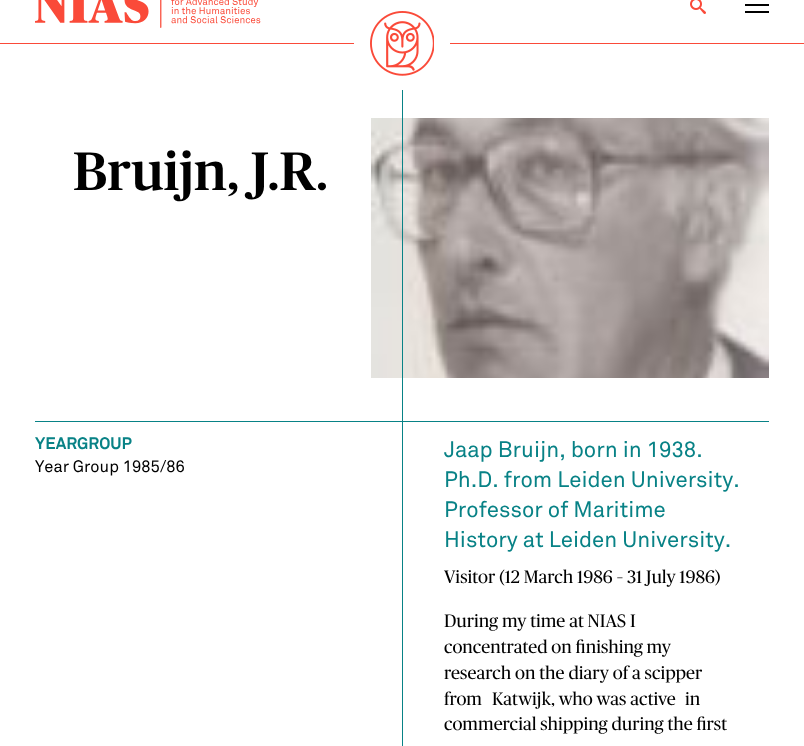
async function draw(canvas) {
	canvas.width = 804;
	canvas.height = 746;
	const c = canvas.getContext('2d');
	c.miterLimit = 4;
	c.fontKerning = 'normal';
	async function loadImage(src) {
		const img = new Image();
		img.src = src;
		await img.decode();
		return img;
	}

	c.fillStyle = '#fff';
	c.fillRect(0, 0, 804, 746);
	c.drawImage(await loadImage('img1.png'), 35, 0, 226, 28);
	c.drawImage(await loadImage('img2.png'), 690, 0, 16, 14);
	for (const [x, y, w, h, color] of [
		[745, 4, 24, 2, '#000'],
		[745, 11, 24, 2, '#000'],
		[0, 43, 354, 1, '#fa4a39'],
	]) {
		c.fillStyle = color;
		c.fillRect(x, y, w, h);
	}
	c.drawImage(await loadImage('img3.png'), 370, 11, 64, 65);
	c.fillRect(450, 43, 354, 1);
	c.drawImage(await loadImage('img4.png'), 371, 118, 398, 260);
	c.fillStyle = '#088286';
	c.fillRect(402, 90, 1, 331);
	c.font = '500 54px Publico';
	c.fillStyle = '#000';
	c.fillText('Bruijn, J.R.', 73, 190);
	c.fillStyle = '#088286';
	c.fillRect(35, 421, 734, 1);
	c.font = 'bold 16.5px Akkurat';
	c.fillText('YEARGROUP', 35, 449);
	c.font = '16.5px Akkurat';
	c.fillStyle = '#000';
	c.fillText('Year Group 1985/86', 35, 472);
	c.fillStyle = '#088286';
	c.fillRect(402, 422, 1, 324);
	c.font = '22.1px Akkurat';
	for (const [text, x, y] of [
		['Jaap Bruijn, born in 1938.', 444, 457],
		['Ph.D. from Leiden University.', 444, 487],
		['Professor of Maritime', 444, 517],
		['History at Leiden University.', 444, 547],
	]) {
		c.fillText(text, x, y);
	}
	c.font = '18px Publico';
	c.fillStyle = '#000';
	for (const [text, x, y] of [
		['Visitor (12 March 1986 – 31 July 1986)', 444, 583],
		['During my time at NIAS I', 444, 627],
		['concentrated on finishing my', 444, 653],
		['research on the diary of a scipper', 444, 679],
		['from', 444, 705],
		['Katwijk, who was active', 492, 705],
		['in', 685, 705],
		['commercial shipping during the first', 444, 730],
	]) {
		c.fillText(text, x, y);
	}
}

draw(document.querySelector('canvas'));
